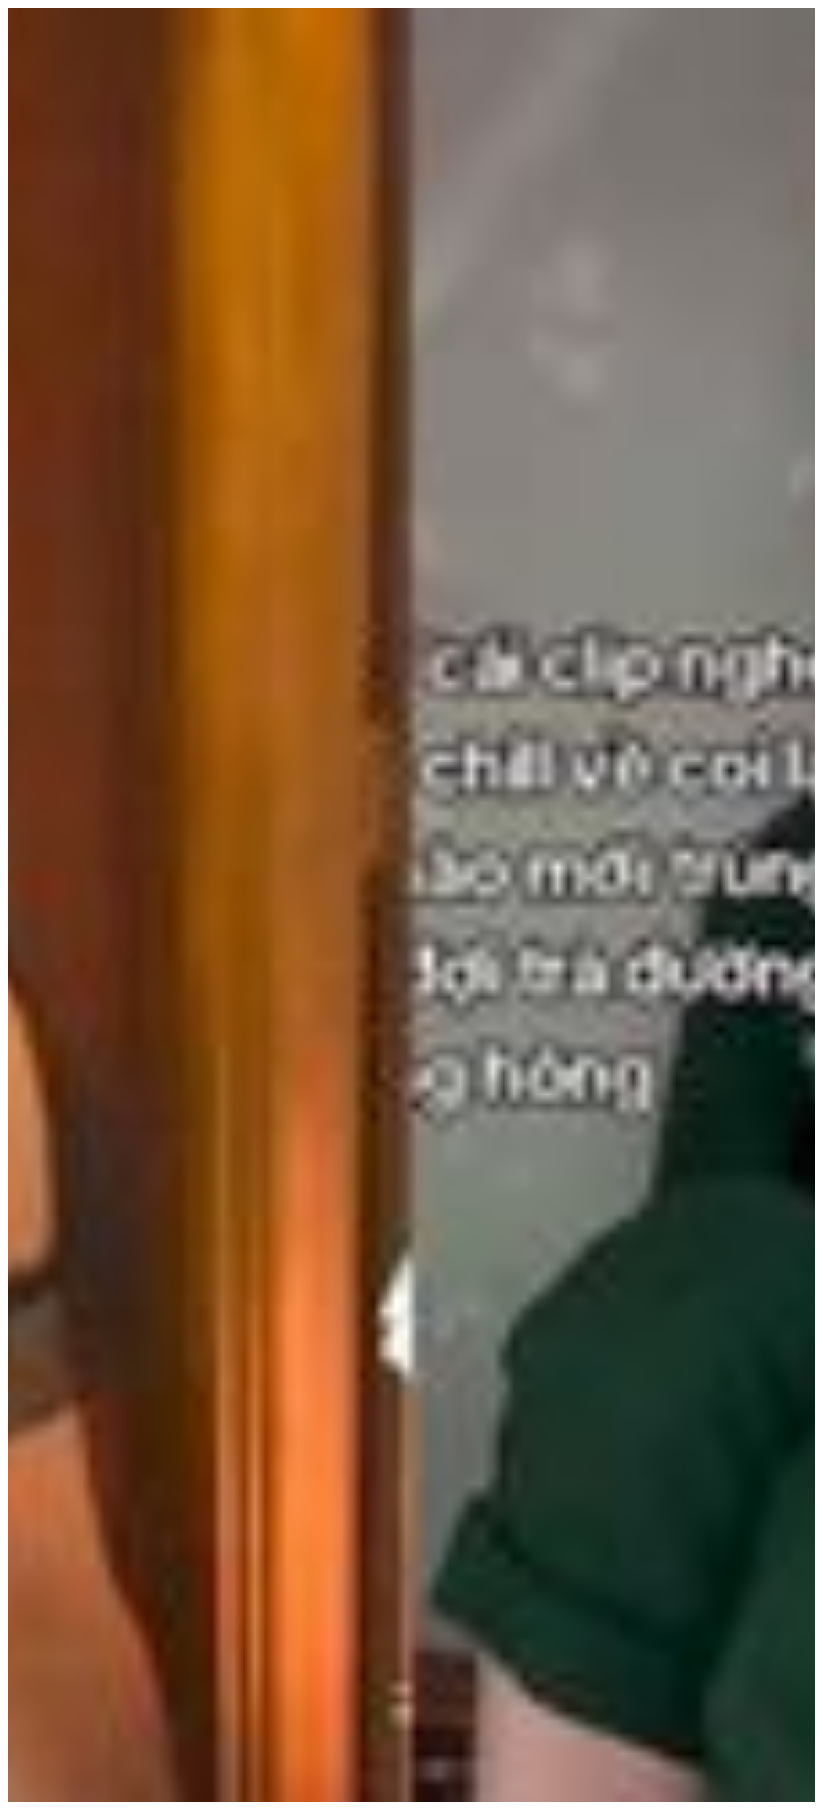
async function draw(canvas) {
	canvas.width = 823;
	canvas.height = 1810;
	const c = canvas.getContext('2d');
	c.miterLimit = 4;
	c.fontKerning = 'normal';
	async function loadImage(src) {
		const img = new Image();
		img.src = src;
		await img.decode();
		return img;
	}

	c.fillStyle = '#fff';
	c.fillRect(0, 0, 823, 1810);
	c.drawImage(await loadImage('img1.png'), 8, 8, 807, 1794);
}

draw(document.querySelector('canvas'));
